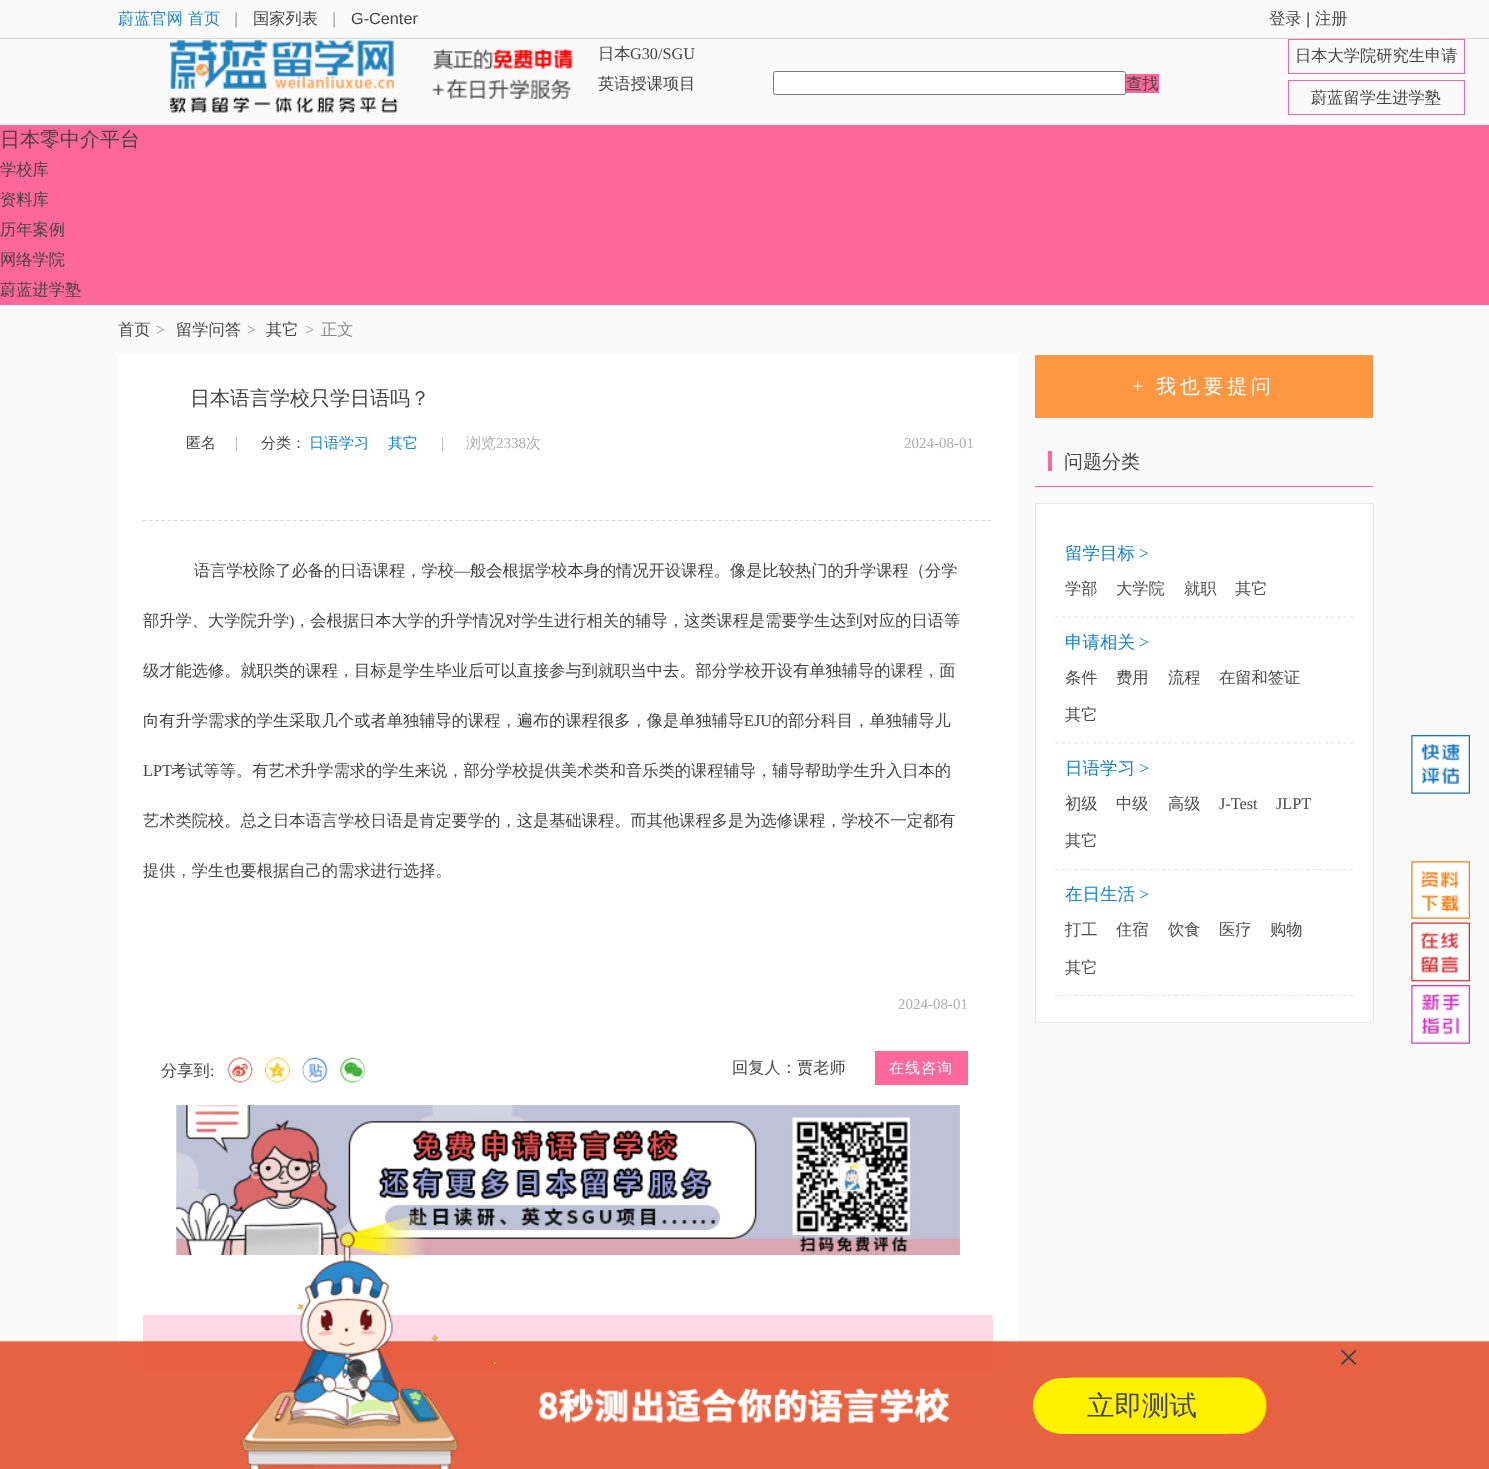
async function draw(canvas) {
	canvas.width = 1489;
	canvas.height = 1469;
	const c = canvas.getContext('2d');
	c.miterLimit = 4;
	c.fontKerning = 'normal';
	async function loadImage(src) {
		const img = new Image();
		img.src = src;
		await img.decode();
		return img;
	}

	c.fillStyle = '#fafafa';
	c.fillRect(0, 0, 1489, 1469);
	c.fillStyle = '#d8d8d8';
	c.fillRect(0, 38, 1489, 1);
	c.font = '500 16.25px WenQuanYi Zen Hei';
	c.fillStyle = '#2888cb';
	c.fillText('蔚蓝官网 首页', 118, 24);
	c.font = '16.25px Liberation Sans';
	c.fillStyle = '#a6a6a6';
	c.fillText('|', 234, 24);
	c.font = '500 16.25px WenQuanYi Zen Hei';
	c.fillStyle = '#444';
	c.fillText('国家列表', 253, 24);
	c.font = '16.25px Liberation Sans';
	c.fillStyle = '#a6a6a6';
	c.fillText('|', 332, 24);
	c.fillStyle = '#444';
	c.fillText('G-Center', 351, 24);
	c.font = '500 16.25px WenQuanYi Zen Hei';
	c.fillText('登录', 1269, 24);
	c.font = '16.25px Liberation Sans';
	c.fillText('|', 1306, 24);
	c.font = '500 16.25px WenQuanYi Zen Hei';
	c.fillText('注册', 1315, 24);
	c.drawImage(await loadImage('img1.png'), 170, 39, 228, 74);
	c.drawImage(await loadImage('img2.png'), 432, 48, 141, 53);
	c.fillText('日本', 598, 59);
	c.font = '16.25px Liberation Serif';
	c.fillText('G30/SGU', 630, 59);
	c.strokeStyle = '#f69';
	c.strokeRect(1288.5, 39.5, 176, 34);
	c.font = '500 16.25px WenQuanYi Zen Hei';
	c.fillText('日本大学院研究生申请', 1295, 61);
	c.strokeRect(1288.5, 80.5, 176, 34);
	c.fillText('蔚蓝留学生进学塾', 1311, 103);
	c.fillText('英语授课项目', 598, 89);
	c.fillStyle = '#fff';
	c.beginPath();
	c.roundRect(773.5, 71.5, 352, 23, 2);
	c.fill();
	c.strokeStyle = '#767676';
	c.stroke();
	c.fillStyle = '#ff679a';
	c.fillRect(1126, 74, 33, 19);
	c.fillStyle = '#444';
	c.fillText('查找', 1126, 89);
	c.fillStyle = '#ff679a';
	c.fillRect(0, 125, 1489, 180);
	c.font = '500 20px WenQuanYi Zen Hei';
	c.fillStyle = '#444';
	c.fillText('日本零中介平台', 0, 146);
	c.font = '500 16.25px WenQuanYi Zen Hei';
	for (const [text, x, y] of [
		['学校库', 0, 175],
		['资料库', 0, 205],
		['历年案例', 0, 235],
		['网络学院', 0, 265],
		['蔚蓝进学塾', 0, 295],
		['首页', 118, 335],
	]) {
		c.fillText(text, x, y);
	}
	c.font = '16.25px Liberation Serif';
	c.fillStyle = '#888';
	c.fillText('>', 156, 335);
	c.font = '500 16.25px WenQuanYi Zen Hei';
	c.fillStyle = '#444';
	c.fillText('留学问答', 176, 335);
	c.font = '16.25px Liberation Serif';
	c.fillStyle = '#888';
	c.fillText('>', 247, 335);
	c.font = '500 16.25px WenQuanYi Zen Hei';
	c.fillStyle = '#444';
	c.fillText('其它', 266, 335);
	c.font = '16.25px Liberation Serif';
	c.fillStyle = '#888';
	c.fillText('>', 305, 335);
	c.font = '500 16.25px WenQuanYi Zen Hei';
	c.fillText('正文', 321, 335);
	c.fillStyle = '#fff';
	c.fillRect(118, 355, 900, 1114);
	c.beginPath();
	c.moveTo(142.5, 520.5);
	c.lineTo(992.5, 520.5);
	c.strokeStyle = '#d8d8d8';
	c.lineWidth = 1.2;
	c.setLineDash([3.75, 2.51]);
	c.stroke();
	c.font = '500 20px WenQuanYi Zen Hei';
	c.fillStyle = '#444';
	c.fillText('日本语言学校只学日语吗？', 190, 405);
	c.font = '500 15px WenQuanYi Zen Hei';
	c.fillText('匿名', 186, 448);
	c.font = '15px Liberation Serif';
	c.fillStyle = '#aeaeae';
	c.fillText('|', 235, 448);
	c.font = '500 15px WenQuanYi Zen Hei';
	c.fillStyle = '#444';
	c.fillText('分类：', 261, 448);
	c.fillStyle = '#1284d2';
	c.fillText('日语学习', 309, 448);
	c.fillText('其它', 388, 448);
	c.font = '15px Liberation Serif';
	c.fillStyle = '#aeaeae';
	c.fillText('|', 441, 448);
	c.font = '500 15px WenQuanYi Zen Hei';
	c.fillText('浏览', 466, 448);
	c.font = '15px Liberation Serif';
	c.fillText('2338', 496, 448);
	c.font = '500 15px WenQuanYi Zen Hei';
	c.fillText('次', 526, 448);
	c.font = '15px Liberation Serif';
	c.fillText('2024-08-01', 904, 448);
	c.font = '500 16.25px WenQuanYi Zen Hei';
	c.fillStyle = '#444';
	c.fillText('语言学校除了必备的日语课程，学校', 194, 576);
	c.font = '16.25px Liberation Serif';
	c.fillText('—', 454, 576);
	c.font = '500 16.25px WenQuanYi Zen Hei';
	c.fillText('般会根据学校本身的情况开设课程。像是比较热门的升学课程（分学', 470, 576);
	c.fillText('部升学、大学院升学', 143, 626);
	c.font = '16.25px Liberation Serif';
	c.fillText(')', 289, 626);
	c.font = '500 16.25px WenQuanYi Zen Hei';
	for (const [text, x, y] of [
		['，会根据日本大学的升学情况对学生进行相关的辅导，这类课程是需要学生达到对应的日语等', 294, 626],
		['级才能选修。就职类的课程，目标是学生毕业后可以直接参与到就职当中去。部分学校开设有单独辅导的课程，面', 143, 676],
		['向有升学需求的学生采取几个或者单独辅导的课程，遍布的课程很多，像是单独辅导', 143, 726],
	]) {
		c.fillText(text, x, y);
	}
	c.font = '16.25px Liberation Serif';
	c.fillText('EJU', 744, 726);
	c.font = '500 16.25px WenQuanYi Zen Hei';
	c.fillText('的部分科目，单独辅导儿', 772, 726);
	c.font = '16.25px Liberation Serif';
	c.fillText('LPT', 143, 776);
	c.font = '500 16.25px WenQuanYi Zen Hei';
	for (const [text, x, y] of [
		['考试等等。有艺术升学需求的学生来说，部分学校提供美术类和音乐类的课程辅导，辅导帮助学生升入日本的', 171, 776],
		['艺术类院校。总之日本语言学校日语是肯定要学的，这是基础课程。而其他课程多是为选修课程，学校不一定都有', 143, 826],
		['提供，学生也要根据自己的需求进行选择。', 143, 876],
	]) {
		c.fillText(text, x, y);
	}
	c.font = '15px Liberation Serif';
	c.fillStyle = '#aeaeae';
	c.fillText('2024-08-01', 898, 1009);
	c.font = '500 16.25px WenQuanYi Zen Hei';
	c.fillStyle = '#444';
	c.fillText('分享到', 161, 1076);
	c.font = '16.25px Liberation Serif';
	c.fillText(':', 210, 1076);
	c.drawImage(await loadImage('img3.png'), 227, 1057, 26, 26);
	c.drawImage(await loadImage('img4.png'), 265, 1057, 25, 26);
	c.drawImage(await loadImage('img5.png'), 302, 1057, 26, 26);
	c.drawImage(await loadImage('img6.png'), 340, 1057, 25, 26);
	c.font = '500 16.25px WenQuanYi Zen Hei';
	c.fillText('回复人：贾老师', 732, 1073);
	c.fillStyle = '#ff679a';
	c.fillRect(875, 1051, 93, 34);
	c.letterSpacing = '1px';
	c.font = '500 15px WenQuanYi Zen Hei';
	c.fillStyle = '#fff';
	c.fillText('在线咨询', 889, 1073);
	c.drawImage(await loadImage('img7.png'), 176, 1105, 784, 150);
	c.fillStyle = '#ffd9e6';
	c.fillRect(143, 1315, 850, 56);
	c.fillStyle = '#fe9741';
	c.fillRect(1035, 355, 338, 63);
	c.letterSpacing = '3.75px';
	c.font = '20px Liberation Serif';
	c.fillStyle = '#fff';
	c.fillText('+', 1132, 393);
	c.font = '500 20px WenQuanYi Zen Hei';
	c.fillText('我也要提问', 1156, 393);
	c.fillStyle = '#ff679a';
	c.fillRect(1035, 486, 338, 1);
	c.fillRect(1048, 451, 4, 20);
	c.letterSpacing = '0px';
	c.font = '500 19px WenQuanYi Zen Hei';
	c.fillStyle = '#444';
	c.fillText('问题分类', 1064, 468);
	c.fillStyle = '#fff';
	c.beginPath();
	c.rect(1035.5, 503.5, 338, 519);
	c.fill();
	c.strokeStyle = '#e7e7e7';
	c.lineWidth = 1;
	c.setLineDash([]);
	c.stroke();
	c.beginPath();
	c.moveTo(1055, 617);
	c.lineTo(1354, 617);
	c.strokeStyle = '#e5e5e5';
	c.lineWidth = 1.2;
	c.setLineDash([3.75, 2.52]);
	c.stroke();
	c.font = '500 17.5px WenQuanYi Zen Hei';
	c.fillStyle = '#1284d2';
	c.fillText('留学目标', 1065, 559);
	c.font = '17.5px Liberation Serif';
	c.fillText('>', 1139, 559);
	c.font = '500 16.25px WenQuanYi Zen Hei';
	c.fillStyle = '#4c4c4c';
	for (const [text, x, y] of [
		['学部', 1065, 594],
		['大学院', 1116, 594],
		['就职', 1184, 594],
		['其它', 1235, 594],
	]) {
		c.fillText(text, x, y);
	}
	c.beginPath();
	c.moveTo(1055, 743);
	c.lineTo(1354, 743);
	c.stroke();
	c.font = '500 17.5px WenQuanYi Zen Hei';
	c.fillStyle = '#1284d2';
	c.fillText('申请相关', 1065, 648);
	c.font = '17.5px Liberation Serif';
	c.fillText('>', 1139, 648);
	c.font = '500 16.25px WenQuanYi Zen Hei';
	c.fillStyle = '#4c4c4c';
	for (const [text, x, y] of [
		['条件', 1065, 683],
		['费用', 1116, 683],
		['流程', 1168, 683],
		['在留和签证', 1219, 683],
		['其它', 1065, 720],
	]) {
		c.fillText(text, x, y);
	}
	c.beginPath();
	c.moveTo(1055, 869.5);
	c.lineTo(1354, 869.5);
	c.stroke();
	c.font = '500 17.5px WenQuanYi Zen Hei';
	c.fillStyle = '#1284d2';
	c.fillText('日语学习', 1065, 774);
	c.font = '17.5px Liberation Serif';
	c.fillText('>', 1139, 774);
	c.font = '500 16.25px WenQuanYi Zen Hei';
	c.fillStyle = '#4c4c4c';
	for (const [text, x, y] of [
		['初级', 1065, 809],
		['中级', 1116, 809],
		['高级', 1168, 809],
	]) {
		c.fillText(text, x, y);
	}
	c.font = '16.25px Liberation Serif';
	c.fillText('J-Test', 1219, 809);
	c.fillText('JLPT', 1276, 809);
	c.font = '500 16.25px WenQuanYi Zen Hei';
	c.fillText('其它', 1065, 846);
	c.beginPath();
	c.moveTo(1055, 995.5);
	c.lineTo(1354, 995.5);
	c.stroke();
	c.font = '500 17.5px WenQuanYi Zen Hei';
	c.fillStyle = '#1284d2';
	c.fillText('在日生活', 1065, 900);
	c.font = '17.5px Liberation Serif';
	c.fillText('>', 1139, 900);
	c.font = '500 16.25px WenQuanYi Zen Hei';
	c.fillStyle = '#4c4c4c';
	for (const [text, x, y] of [
		['打工', 1065, 935],
		['住宿', 1116, 935],
		['饮食', 1168, 935],
		['医疗', 1219, 935],
		['购物', 1270, 935],
		['其它', 1065, 973],
	]) {
		c.fillText(text, x, y);
	}
	c.drawImage(await loadImage('img8.png'), 1411, 735, 59, 59);
	c.drawImage(await loadImage('img9.png'), 1411, 861, 59, 58);
	c.drawImage(await loadImage('img10.png'), 1411, 922, 59, 60);
	c.drawImage(await loadImage('img11.png'), 1411, 985, 59, 59);
	c.drawImage(await loadImage('img12.png'), 0, 1213, 1489, 256);
	c.font = '38px Liberation Serif';
	c.fillStyle = '#444';
	c.fillText('×', 1338, 1370);
	c.fillStyle = '#fff100';
	c.beginPath();
	c.roundRect(1033, 1378, 218, 56, 28);
	c.fill();
	c.font = '500 27.5px WenQuanYi Zen Hei';
	c.fillStyle = '#444';
	c.fillText('立即测试', 1087, 1415);
}

draw(document.querySelector('canvas'));
